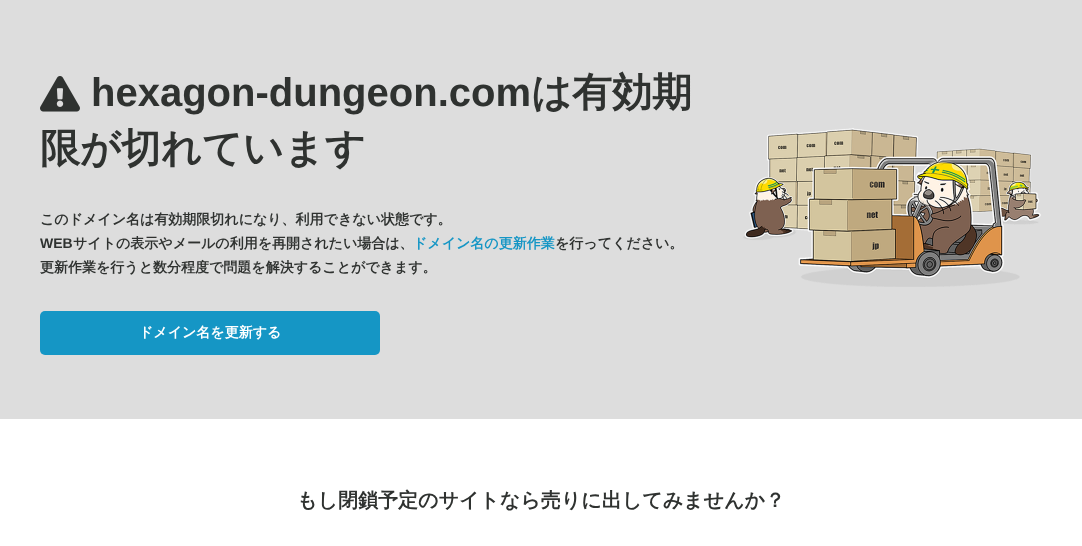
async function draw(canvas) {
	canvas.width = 1082;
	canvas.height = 546;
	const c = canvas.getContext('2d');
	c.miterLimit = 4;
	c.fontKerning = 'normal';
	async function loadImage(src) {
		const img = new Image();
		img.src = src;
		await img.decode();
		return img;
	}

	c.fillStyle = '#fff';
	c.fillRect(0, 0, 1082, 546);
	c.fillStyle = '#ddd';
	c.fillRect(0, 0, 1082, 419);
	c.drawImage(await loadImage('img1.png'), 40, 76, 40, 36);
	c.font = 'bold 40px Liberation Sans';
	c.fillStyle = '#2f3230';
	c.fillText('hexagon-dungeon.com', 91, 106);
	c.font = 'bold 40px WenQuanYi Zen Hei';
	c.fillText('は有効期', 531, 106);
	c.fillText('限が切れています', 40, 162);
	c.font = 'bold 14px WenQuanYi Zen Hei';
	c.fillText('このドメイン名は有効期限切れになり、利用できない状態です。', 40, 224);
	c.font = 'bold 14px Liberation Sans';
	c.fillText('WEB', 40, 248);
	c.font = 'bold 14px WenQuanYi Zen Hei';
	c.fillText('サイトの表示やメールの利用を再開されたい場合は、', 73, 248);
	c.fillStyle = '#1596c5';
	c.fillText('ドメイン名の更新作業', 413, 248);
	c.fillStyle = '#2f3230';
	c.fillText('を行ってください。', 555, 248);
	c.fillText('更新作業を行うと数分程度で問題を解決することができます。', 40, 272);
	c.fillStyle = '#1596c5';
	c.beginPath();
	c.roundRect(40, 311, 340, 44, 5);
	c.fill();
	c.fillStyle = '#fff';
	c.fillText('ドメイン名を更新する', 139, 337);
	c.drawImage(await loadImage('img2.png'), 743, 128, 298, 159);
	c.font = 'bold 20px WenQuanYi Zen Hei';
	c.fillStyle = '#2f3230';
	c.fillText('もし閉鎖予定のサイトなら売りに出してみませんか？', 297, 507);
}

draw(document.querySelector('canvas'));
